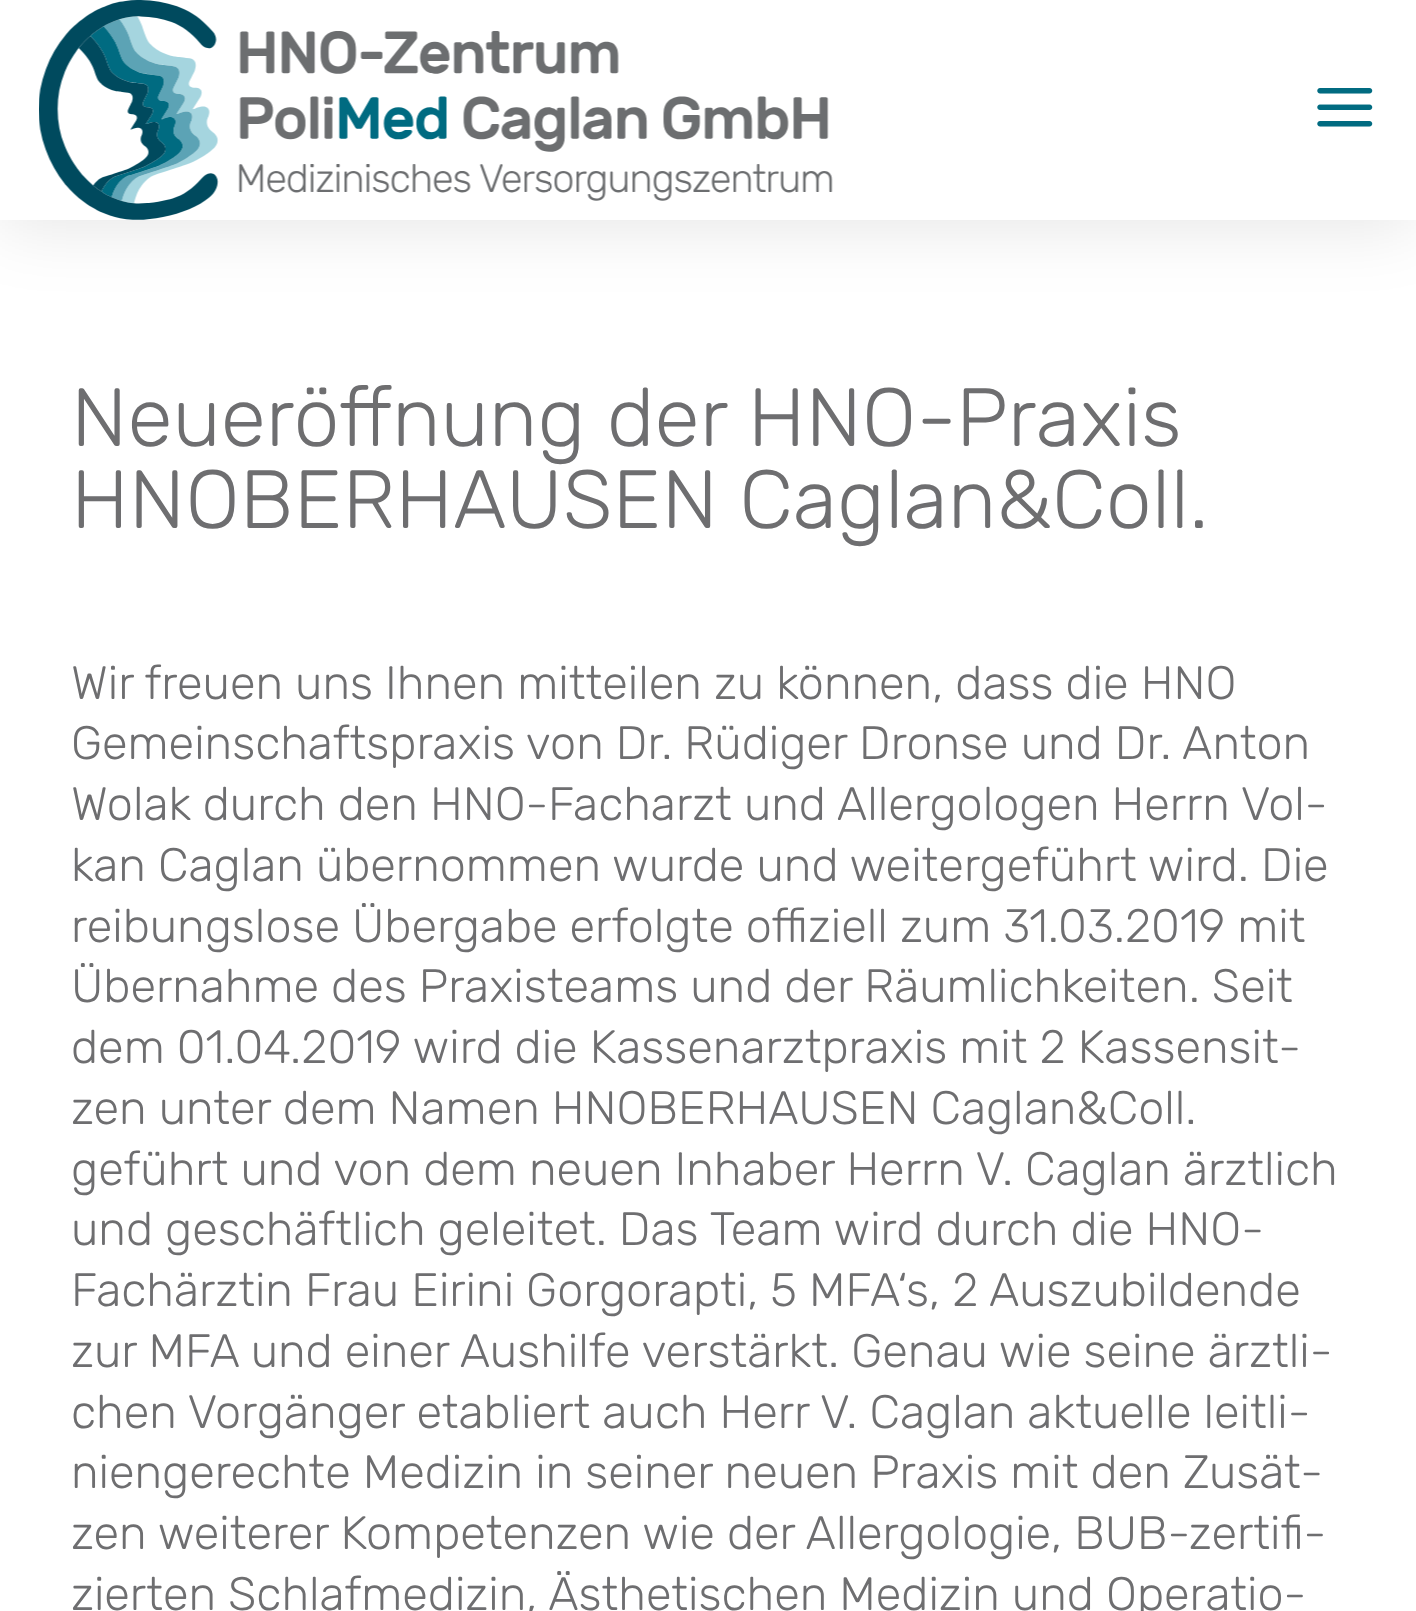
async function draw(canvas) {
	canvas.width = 1416;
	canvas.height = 1611;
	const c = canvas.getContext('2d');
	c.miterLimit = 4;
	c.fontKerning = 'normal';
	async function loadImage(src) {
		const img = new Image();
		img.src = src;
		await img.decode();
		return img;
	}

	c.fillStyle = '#fff';
	c.fillRect(0, 0, 1416, 1611);
	c.fillStyle = '#0000001a';
	c.filter = 'blur(34.5px)';
	c.beginPath();
	c.rect(0, 6, 1416, 220);
	c.fill();
	c.filter = 'none';
	c.fillStyle = '#fff';
	c.fillRect(0, 0, 1416, 220);
	c.drawImage(await loadImage('img1.png'), 39, 0, 794, 220);
	c.drawImage(await loadImage('img2.png'), 1317, 88, 56, 39);
	c.font = '300 82.5px Rubik';
	c.fillStyle = '#6e6e70';
	c.fillText('Neueröffnung der HNO-Praxis', 71, 446);
	c.fillText('HNOBERHAUSEN Caglan&Coll.', 71, 528);
	c.font = '300 46.75px Rubik';
	for (const [text, x, y] of [
		['Wir freuen uns Ihnen mitteilen zu können, dass die HNO', 71, 699],
		['Gemeinschaftspraxis von Dr. Rüdiger Dronse und Dr. Anton', 71, 759],
		['Wolak durch den HNO-Facharzt und Allergologen Herrn Vol-', 71, 820],
		['kan Caglan übernommen wurde und weitergeführt wird. Die', 71, 881],
		['reibungslose Übergabe erfolgte offiziell zum 31.03.2019 mit', 71, 942],
		['Übernahme des Praxisteams und der Räumlichkeiten. Seit', 71, 1002],
		['dem 01.04.2019 wird die Kassenarztpraxis mit 2 Kassensit-', 71, 1063],
		['zen unter dem Namen HNOBERHAUSEN Caglan&Coll.', 71, 1124],
		['geführt und von dem neuen Inhaber Herrn V. Caglan ärztlich', 71, 1185],
		['und geschäftlich geleitet. Das Team wird durch die HNO-', 71, 1245],
		['Fachärztin Frau Eirini Gorgorapti, 5 MFA‘s, 2 Auszubildende', 71, 1306],
		['zur MFA und einer Aushilfe verstärkt. Genau wie seine ärztli-', 71, 1367],
		['chen Vorgänger etabliert auch Herr V. Caglan aktuelle leitli-', 71, 1428],
		['niengerechte Medizin in seiner neuen Praxis mit den Zusät-', 71, 1488],
		['zen weiterer Kompetenzen wie der Allergologie, BUB-zertifi-', 71, 1549],
		['zierten Schlafmedizin, Ästhetischen Medizin und Operatio-', 71, 1610],
	]) {
		c.fillText(text, x, y);
	}
}

draw(document.querySelector('canvas'));
